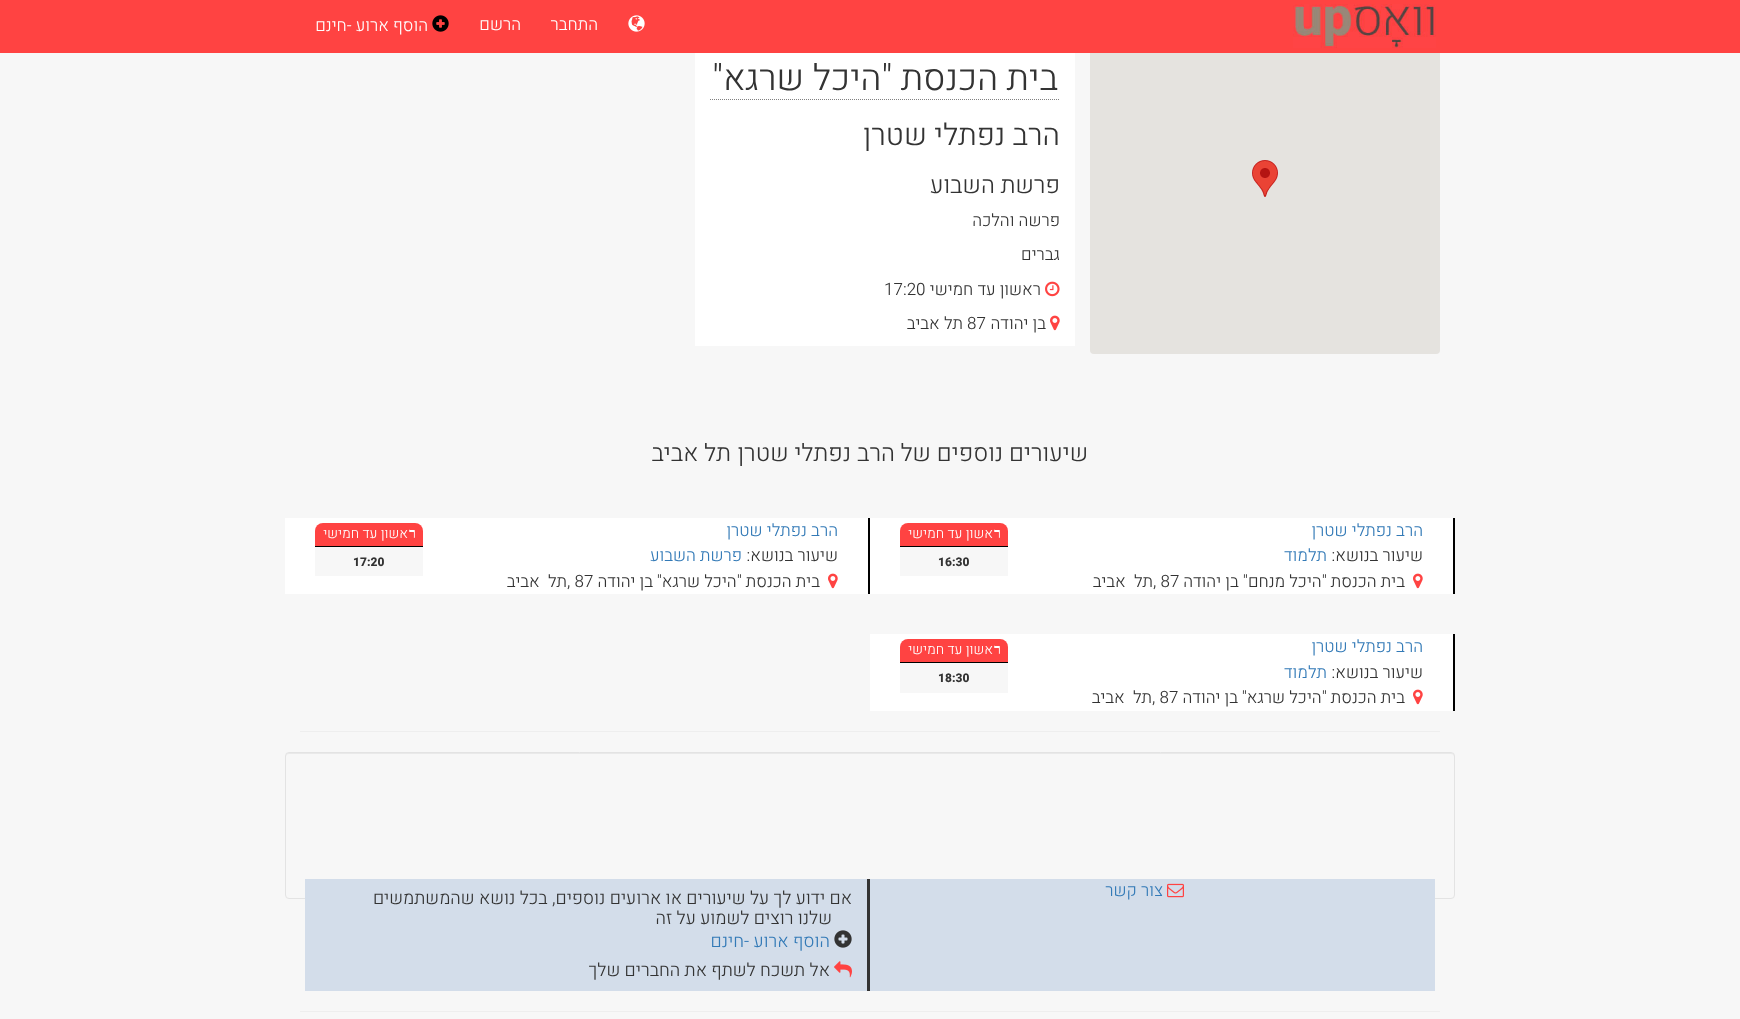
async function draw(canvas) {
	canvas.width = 1740;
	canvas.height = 1019;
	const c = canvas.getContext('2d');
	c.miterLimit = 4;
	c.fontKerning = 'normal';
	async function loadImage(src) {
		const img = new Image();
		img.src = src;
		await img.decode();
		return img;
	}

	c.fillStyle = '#f7f7f7';
	c.fillRect(0, 0, 1740, 1019);
	c.fillStyle = '#e5e3df';
	c.beginPath();
	c.roundRect(1090, 39, 350, 315, 4);
	c.fill();
	c.fillStyle = '#ff4342';
	c.fillRect(0, 0, 1740, 53);
	c.drawImage(await loadImage('img1.png'), 1293, 4, 143, 44);
	c.drawImage(await loadImage('img2.png'), 628, 15, 17, 17);
	c.direction = 'rtl';
	c.font = '300 17px Heebo';
	c.fillStyle = '#fff';
	c.fillText('התחבר', 598, 30);
	c.fillText('הרשם', 521, 30);
	c.drawImage(await loadImage('img3.png'), 432, 15, 17, 17);
	c.fillText('הוסף ארוע -חינם', 428, 31);
	c.drawImage(await loadImage('img4.png'), 1252, 160, 26, 37);
	c.fillRect(695, 53, 380, 293);
	c.beginPath();
	c.moveTo(710, 99.5);
	c.lineTo(1060, 99.5);
	c.strokeStyle = '#808080';
	c.setLineDash([1, 1]);
	c.stroke();
	c.font = '300 36px Heebo';
	c.fillStyle = '#333';
	c.fillText('בית הכנסת "היכל שרגא"', 1058, 90);
	c.font = '300 30px Heebo';
	c.fillText('הרב נפתלי שטרן', 1060, 145);
	c.font = '300 24px Heebo';
	c.fillText('פרשת השבוע', 1060, 193);
	c.font = '300 17px Heebo';
	c.fillText('פרשה והלכה', 1060, 226);
	c.fillText('גברים', 1060, 260);
	c.drawImage(await loadImage('img5.png'), 1045, 281, 15, 16);
	c.fillText('ראשון עד חמישי', 1041, 295);
	c.direction = 'ltr';
	c.fillText('17:20', 884, 295);
	c.drawImage(await loadImage('img6.png'), 1050, 315, 10, 16);
	c.direction = 'rtl';
	c.fillText('בן יהודה', 1046, 329);
	c.direction = 'ltr';
	c.fillText('87', 967, 329);
	c.direction = 'rtl';
	c.fillText('תל אביב', 963, 329);
	c.font = '300 24px Heebo';
	for (const [text, x, y] of [
		['שיעורים נוספים של', 1088, 461],
		['הרב נפתלי שטרן', 895, 461],
		['תל אביב', 731, 461],
	]) {
		c.fillText(text, x, y);
	}
	c.fillStyle = '#fff';
	c.fillRect(870, 518, 583, 76);
	c.fillStyle = '#000';
	c.fillRect(1453, 518, 2, 76);
	c.font = '300 17px Heebo';
	c.fillStyle = '#337ab7';
	c.fillText('הרב נפתלי שטרן', 1423, 536);
	c.fillStyle = '#333';
	c.fillText('שיעור בנושא:', 1423, 561);
	c.fillStyle = '#337ab7';
	c.fillText('תלמוד', 1327, 561);
	c.drawImage(await loadImage('img6.png'), 1413, 573, 10, 16);
	c.fillStyle = '#333';
	c.fillText('בית הכנסת "היכל מנחם" בן יהודה', 1405, 587);
	c.direction = 'ltr';
	c.fillText(', 87', 1153, 587);
	c.wordSpacing = '4px';
	c.direction = 'rtl';
	c.fillText('תל אביב', 1153, 587);
	c.fillStyle = '#ff4342';
	c.beginPath();
	c.roundRect(900, 523, 108, 23, [8, 8, 0, 0]);
	c.fill();
	c.wordSpacing = '0px';
	c.font = '900 14px Noto Sans';
	c.fillStyle = '#fff';
	c.fillText('ר', 1001, 538);
	c.font = '300 14px Heebo';
	c.fillText('אשון עד חמישי', 993, 538);
	c.fillStyle = '#f7f7f7';
	c.fillRect(900, 547, 108, 29);
	c.fillStyle = '#000';
	c.fillRect(900, 546, 108, 1);
	c.direction = 'ltr';
	c.font = '800 12px Heebo';
	c.fillStyle = '#333';
	c.fillText('16:30', 938, 566);
	c.fillStyle = '#fff';
	c.fillRect(285, 518, 583, 76);
	c.fillStyle = '#000';
	c.fillRect(868, 518, 2, 76);
	c.direction = 'rtl';
	c.font = '300 17px Heebo';
	c.fillStyle = '#337ab7';
	c.fillText('הרב נפתלי שטרן', 838, 536);
	c.fillStyle = '#333';
	c.fillText('שיעור בנושא:', 838, 561);
	c.fillStyle = '#337ab7';
	c.fillText('פרשת השבוע', 742, 561);
	c.drawImage(await loadImage('img6.png'), 828, 573, 10, 16);
	c.fillStyle = '#333';
	c.fillText('בית הכנסת "היכל שרגא"', 820, 587);
	c.fillText('בן יהודה', 653, 587);
	c.direction = 'ltr';
	c.fillText(', 87', 567, 587);
	c.wordSpacing = '4px';
	c.direction = 'rtl';
	c.fillText('תל אביב', 567, 587);
	c.fillStyle = '#ff4342';
	c.beginPath();
	c.roundRect(315, 523, 108, 23, [8, 8, 0, 0]);
	c.fill();
	c.wordSpacing = '0px';
	c.font = '900 14px Noto Sans';
	c.fillStyle = '#fff';
	c.fillText('ר', 416, 538);
	c.font = '300 14px Heebo';
	c.fillText('אשון עד חמישי', 408, 538);
	c.fillStyle = '#f7f7f7';
	c.fillRect(315, 547, 108, 29);
	c.fillStyle = '#000';
	c.fillRect(315, 546, 108, 1);
	c.direction = 'ltr';
	c.font = '800 12px Heebo';
	c.fillStyle = '#333';
	c.fillText('17:20', 353, 566);
	c.fillStyle = '#fff';
	c.fillRect(870, 634, 583, 77);
	c.fillStyle = '#000';
	c.fillRect(1453, 634, 2, 77);
	c.direction = 'rtl';
	c.font = '300 17px Heebo';
	c.fillStyle = '#337ab7';
	c.fillText('הרב נפתלי שטרן', 1423, 652);
	c.fillStyle = '#333';
	c.fillText('שיעור בנושא:', 1423, 678);
	c.fillStyle = '#337ab7';
	c.fillText('תלמוד', 1327, 678);
	c.drawImage(await loadImage('img6.png'), 1413, 689, 10, 16);
	c.fillStyle = '#333';
	c.fillText('בית הכנסת "היכל שרגא"', 1405, 703);
	c.fillText('בן יהודה', 1238, 703);
	c.direction = 'ltr';
	c.fillText(', 87', 1152, 703);
	c.wordSpacing = '4px';
	c.direction = 'rtl';
	c.fillText('תל אביב', 1152, 703);
	c.fillStyle = '#ff4342';
	c.beginPath();
	c.roundRect(900, 639, 108, 23, [8, 8, 0, 0]);
	c.fill();
	c.wordSpacing = '0px';
	c.font = '900 14px Noto Sans';
	c.fillStyle = '#fff';
	c.fillText('ר', 1001, 654);
	c.font = '300 14px Heebo';
	c.fillText('אשון עד חמישי', 993, 654);
	c.fillStyle = '#f7f7f7';
	c.fillRect(900, 663, 108, 30);
	c.fillStyle = '#000';
	c.fillRect(900, 662, 108, 1);
	c.direction = 'ltr';
	c.font = '800 12px Heebo';
	c.fillStyle = '#333';
	c.fillText('18:30', 938, 682);
	c.fillStyle = '#eee';
	c.fillRect(300, 731, 1140, 1);
	c.fillStyle = '#e9e9e9';
	c.beginPath();
	c.moveTo(289, 754);
	c.lineTo(1451, 754);
	c.bezierCurveTo(1453, 754, 1454, 755, 1454, 757);
	c.lineTo(1454, 756);
	c.bezierCurveTo(1454, 754, 1453, 753, 1451, 753);
	c.lineTo(289, 753);
	c.bezierCurveTo(287, 753, 286, 754, 286, 756);
	c.lineTo(286, 757);
	c.bezierCurveTo(286, 755, 287, 754, 289, 754);
	c.closePath();
	c.fill();
	c.beginPath();
	c.roundRect(285.5, 752.5, 1169, 146, 3.5);
	c.strokeStyle = '#e3e3e3';
	c.setLineDash([]);
	c.stroke();
	c.fillStyle = '#d3ddea';
	c.fillRect(305, 879, 1130, 112);
	c.drawImage(await loadImage('img7.png'), 1167, 883, 17, 15);
	c.direction = 'rtl';
	c.font = '300 17px Heebo';
	c.fillStyle = '#337ab7';
	c.fillText('צור קשר', 1163, 896);
	c.fillStyle = '#333';
	c.fillRect(867, 879, 3, 112);
	c.font = '300 18px Heebo';
	c.fillText('אם ידוע לך על שיעורים או ארועים נוספים, בכל נושא שהמשתמשים', 852, 904);
	c.fillText('שלנו רוצים לשמוע על זה', 832, 924);
	c.drawImage(await loadImage('img8.png'), 834, 930, 18, 18);
	c.fillStyle = '#337ab7';
	c.fillText('הוסף ארוע -חינם', 830, 947);
	c.drawImage(await loadImage('img9.png'), 834, 961, 18, 17);
	c.fillStyle = '#333';
	c.fillText('אל תשכח לשתף את החברים שלך', 830, 976);
	c.fillStyle = '#eee';
	c.fillRect(300, 1011, 1140, 1);
}

draw(document.querySelector('canvas'));
